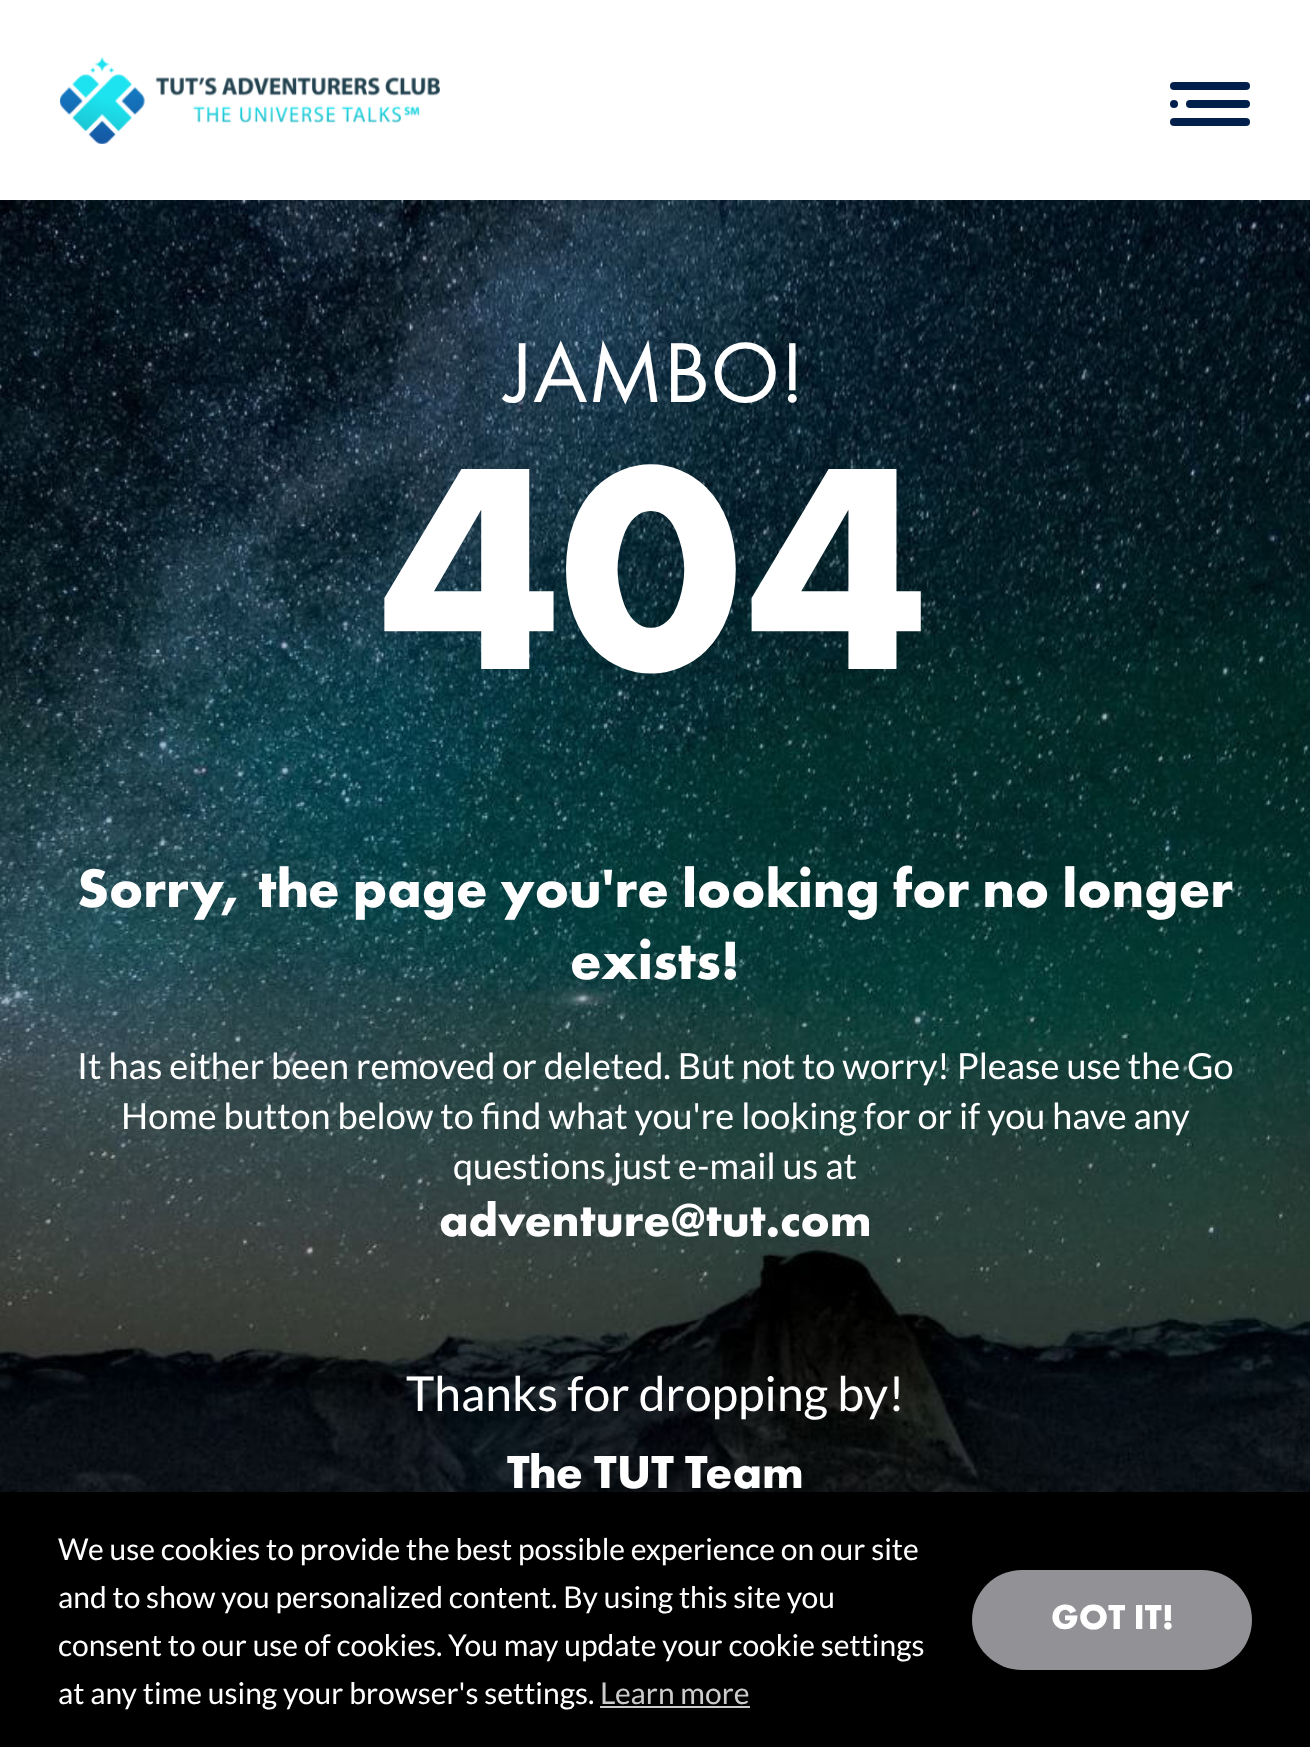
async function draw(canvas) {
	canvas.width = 1310;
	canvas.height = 1747;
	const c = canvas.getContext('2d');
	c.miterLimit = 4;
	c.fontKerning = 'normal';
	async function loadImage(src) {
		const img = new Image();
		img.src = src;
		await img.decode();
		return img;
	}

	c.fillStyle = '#fff';
	c.fillRect(0, 0, 1310, 1747);
	c.drawImage(await loadImage('img1.png'), 60, 56, 380, 88);
	c.fillStyle = '#001f4a';
	c.beginPath();
	c.roundRect(1170, 82, 80, 8, 4);
	c.fill();
	c.beginPath();
	c.roundRect(1186, 100, 64, 8, 4);
	c.fill();
	c.beginPath();
	c.arc(1174, 104, 4, 0, 2 * Math.PI);
	c.fill();
	c.beginPath();
	c.roundRect(1170, 118, 80, 8, 4);
	c.fill();
	c.drawImage(await loadImage('img2.png'), 0, 200, 1310, 1292);
	c.font = '88px Futura PT';
	c.fillStyle = '#fff';
	c.fillText('JAMBO!', 506, 402);
	c.font = 'bold 300px Futura PT';
	c.fillText('404', 381, 669);
	c.font = 'bold 56px Futura PT';
	c.fillText('Sorry, the page you\'re looking for no longer', 77, 907);
	c.fillText('exists!', 570, 979);
	c.font = '36px Lato';
	for (const [text, x, y] of [
		['It has either been removed or deleted. But not to worry! Please use the Go', 77, 1079],
		['Home button below to find what you\'re looking for or if you have any', 121, 1129],
		['questions just e-mail us at', 453, 1179],
	]) {
		c.fillText(text, x, y);
	}
	c.font = 'bold 48px Futura PT';
	c.fillText('adventure@tut.com', 439, 1236);
	c.font = '48px Lato';
	c.fillText('Thanks for dropping by!', 406, 1411);
	c.font = 'bold 48px Futura PT';
	c.fillText('The TUT Team', 507, 1488);
	c.fillStyle = '#000';
	c.fillRect(0, 1492, 1310, 255);
	c.font = '30px Lato';
	c.fillStyle = '#fff';
	for (const [text, x, y] of [
		['We use cookies to provide the best possible experience on our site', 58, 1560],
		['and to show you personalized content. By using this site you', 58, 1608],
		['consent to our use of cookies. You may update your cookie settings', 58, 1656],
		['at any time using your browser\'s settings.', 58, 1704],
	]) {
		c.fillText(text, x, y);
	}
	c.fillStyle = '#ccc';
	c.fillText('Learn more', 600, 1704);
	c.fillRect(600, 1706, 150, 2);
	c.fillStyle = '#919196';
	c.beginPath();
	c.roundRect(972, 1570, 280, 100, 50);
	c.fill();
	c.font = 'bold 36px Futura PT';
	c.fillStyle = '#fff';
	c.fillText('GOT IT!', 1051, 1629);
}

draw(document.querySelector('canvas'));
